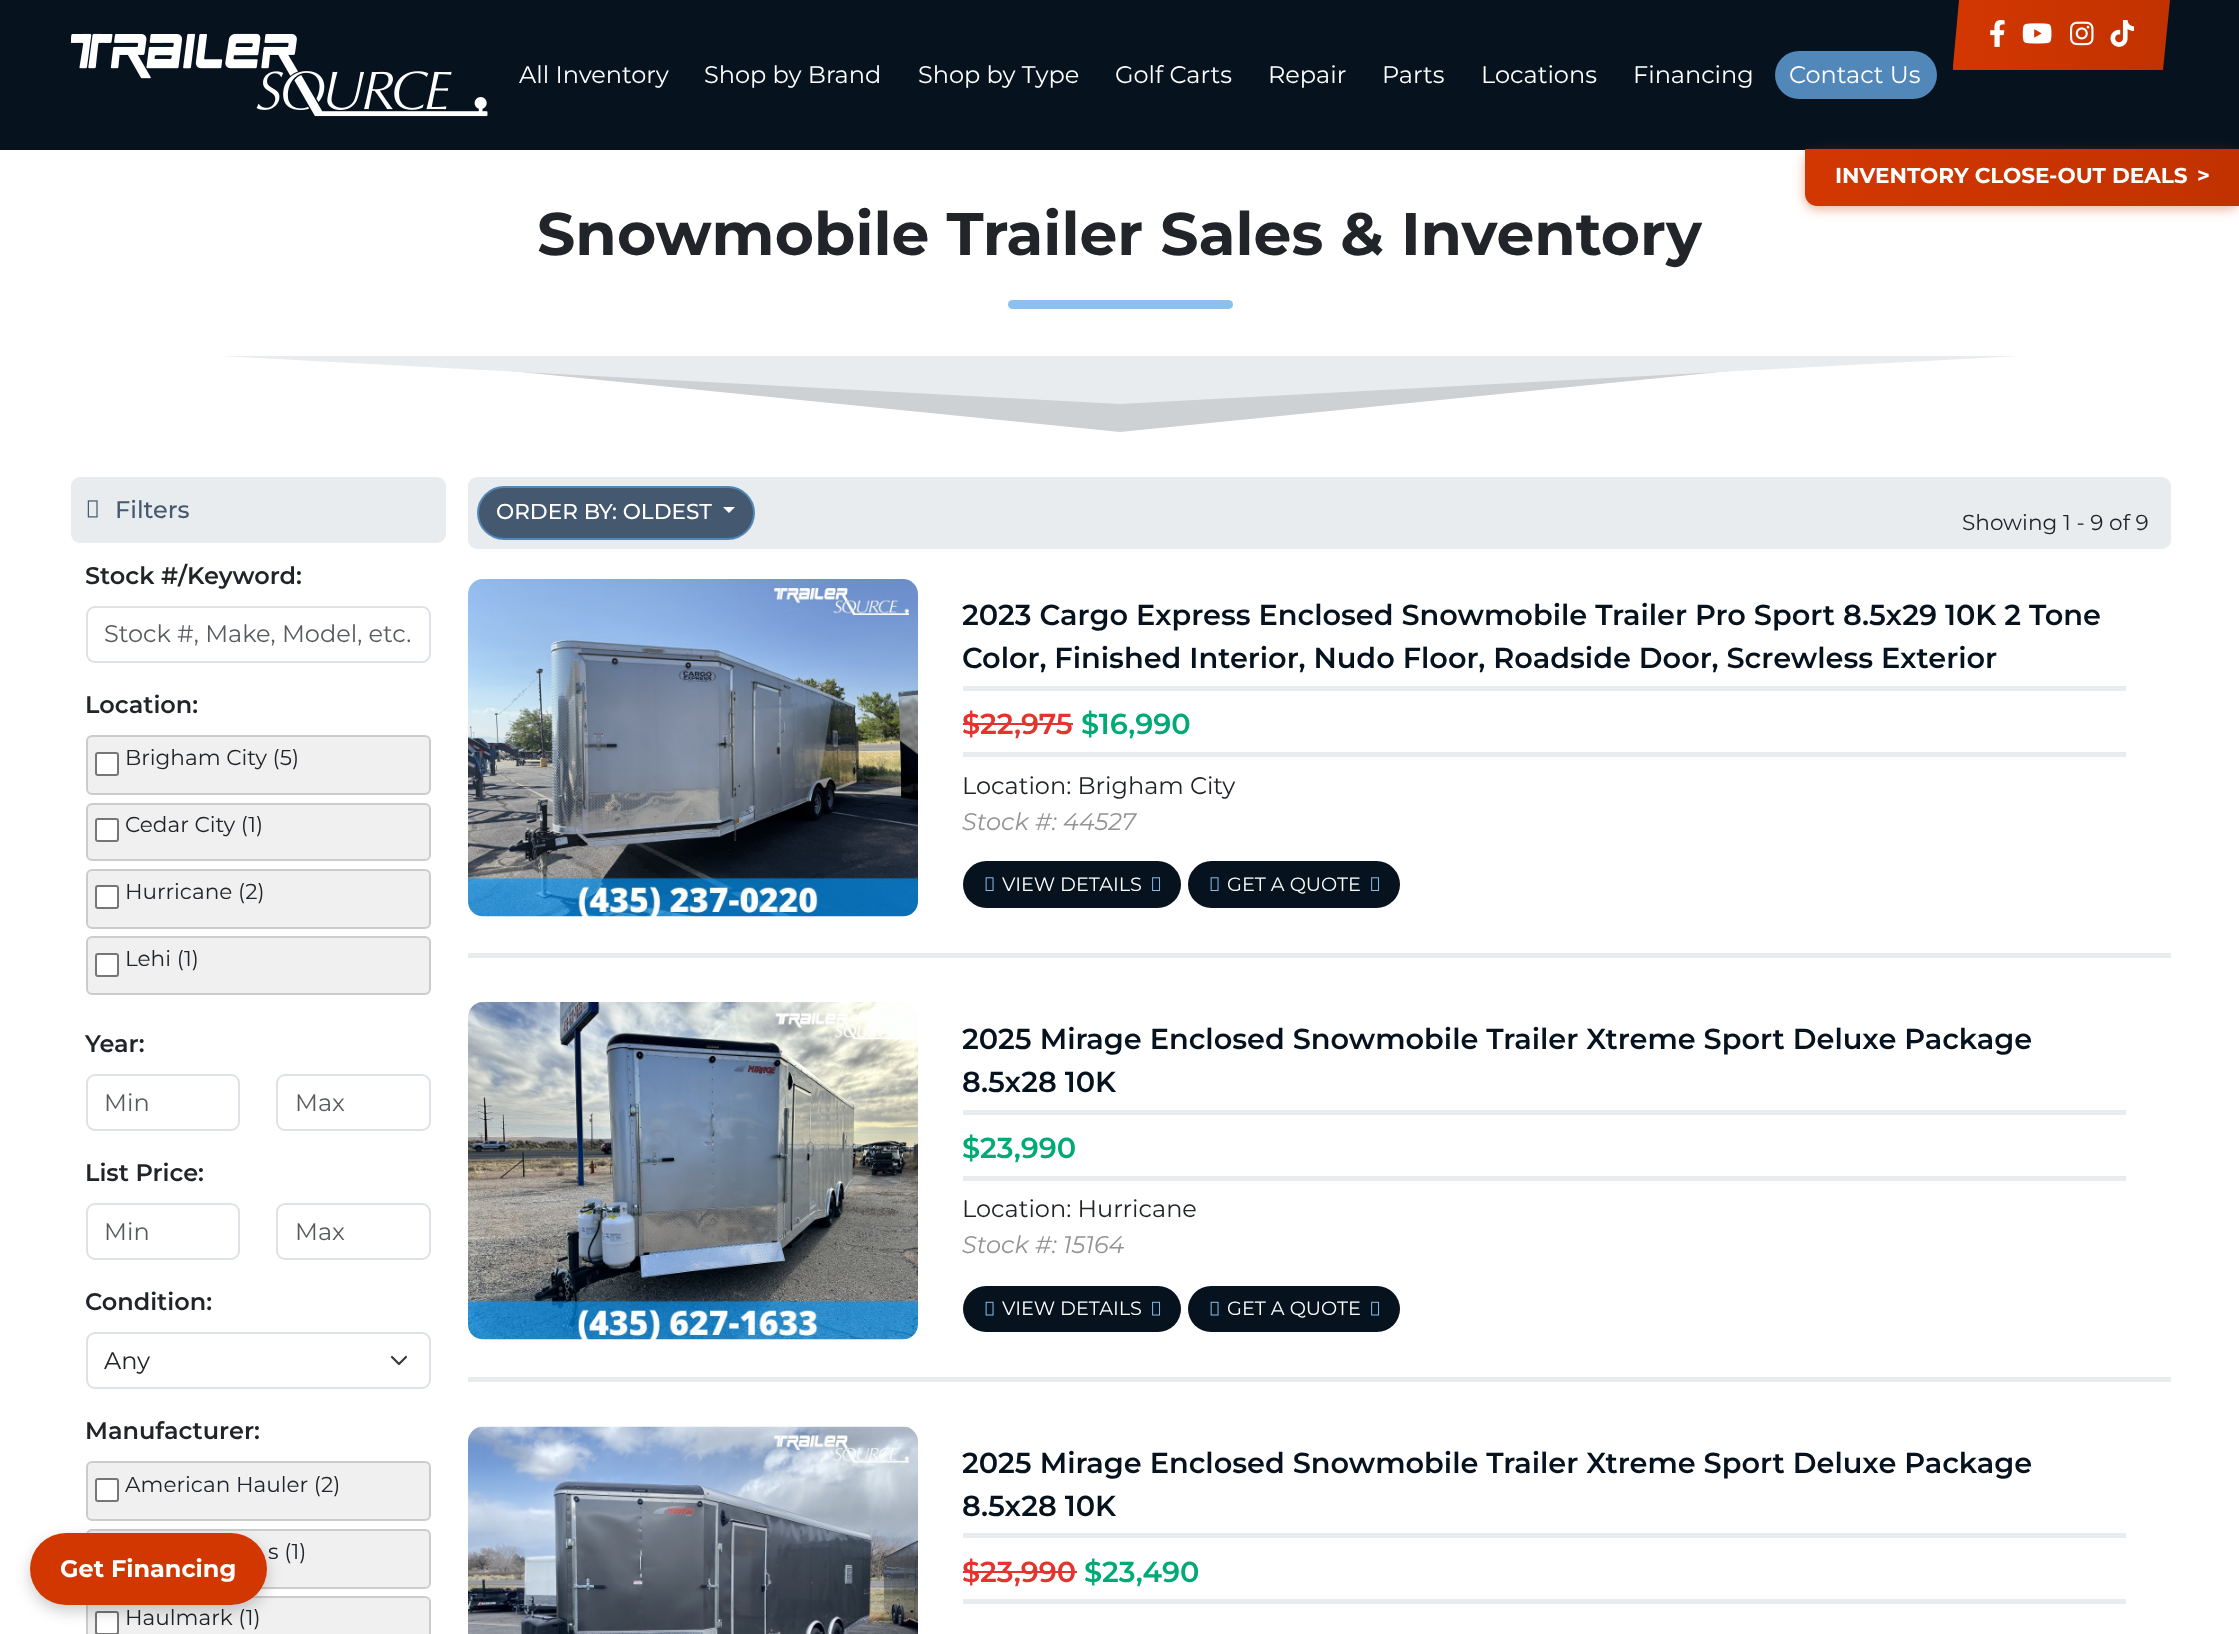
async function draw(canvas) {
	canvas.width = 2239;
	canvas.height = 1634;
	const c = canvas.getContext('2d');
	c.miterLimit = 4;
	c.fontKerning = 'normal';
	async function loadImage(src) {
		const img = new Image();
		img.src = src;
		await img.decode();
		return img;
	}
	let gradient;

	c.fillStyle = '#fff';
	c.fillRect(0, 0, 2239, 1634);
	c.fillStyle = '#06131f';
	c.fillRect(0, 0, 2239, 150);
	c.drawImage(await loadImage('img1.png'), 71, 33, 417, 84);
	c.font = '24px Montserrat';
	c.fillStyle = '#fff';
	for (const [text, x, y] of [
		['All Inventory', 519, 83],
		['Shop by Brand', 704, 83],
		['Shop by Type', 918, 83],
		['Golf Carts', 1115, 83],
		['Repair', 1268, 83],
		['Parts', 1382, 83],
		['Locations', 1481, 83],
		['Financing', 1633, 83],
	]) {
		c.fillText(text, x, y);
	}
	c.fillStyle = '#5288b9';
	c.beginPath();
	c.roundRect(1775, 51, 162, 48, 24);
	c.fill();
	c.fillStyle = '#fff';
	c.fillText('Contact Us', 1789, 83);
	gradient = c.createLinearGradient(1953, 35, 2171, 35);
	gradient.addColorStop(0, '#d33701');
	gradient.addColorStop(1, '#c13200');
	c.fillStyle = gradient;
	c.beginPath();
	c.moveTo(1959, 0);
	c.lineTo(1953, 66);
	c.lineTo(1953, 70);
	c.lineTo(2163, 70);
	c.lineTo(2170, 0);
	c.closePath();
	c.fill();
	c.drawImage(await loadImage('img2.png'), 1990, 20, 15, 27);
	c.drawImage(await loadImage('img3.png'), 2022, 23, 30, 21);
	c.drawImage(await loadImage('img4.png'), 2070, 21, 24, 25);
	c.drawImage(await loadImage('img5.png'), 2110, 20, 24, 27);
	c.fillStyle = '#d3370166';
	c.filter = 'blur(6px)';
	c.beginPath();
	c.roundRect(1805, 152, 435, 57, 12);
	c.fill();
	c.filter = 'none';
	gradient = c.createLinearGradient(1805, 177, 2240, 177);
	gradient.addColorStop(0, '#d33701');
	gradient.addColorStop(1, '#c13200');
	c.fillStyle = gradient;
	c.beginPath();
	c.moveTo(1805, 149);
	c.lineTo(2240, 149);
	c.lineTo(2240, 206);
	c.lineTo(1817, 206);
	c.bezierCurveTo(1810.5, 206, 1805, 200.5, 1805, 194);
	c.closePath();
	c.fill();
	c.font = 'bold 21.6px Montserrat';
	c.fillStyle = '#fff';
	c.fillText('INVENTORY CLOSE-OUT DEALS', 1835, 183);
	c.fillText('>', 2197, 183);
	c.font = 'bold 60px Montserrat';
	c.fillStyle = '#212529';
	c.fillText('Snowmobile Trailer Sales & Inventory', 537, 255);
	c.fillStyle = '#8cc0ef';
	c.beginPath();
	c.roundRect(1008, 300, 225, 9, 4.5);
	c.fill();
	c.fillStyle = '#cdd1d4';
	c.beginPath();
	c.moveTo(370, 357);
	c.lineTo(1870, 357);
	c.lineTo(1120, 432);
	c.closePath();
	c.fill();
	c.fillStyle = '#e9ecef';
	c.beginPath();
	c.moveTo(220, 356);
	c.lineTo(2020, 356);
	c.lineTo(1120, 404);
	c.closePath();
	c.fill();
	c.fillStyle = '#e8ecef';
	c.beginPath();
	c.roundRect(71, 477, 375, 66, 9);
	c.fill();
	c.drawImage(await loadImage('img6.png'), 87, 500, 11, 18);
	c.font = '500 24px Montserrat';
	c.fillStyle = '#445970';
	c.fillText('Filters', 115, 518);
	c.font = '600 24px Montserrat';
	c.fillStyle = '#212529';
	c.fillText('Stock #/Keyword:', 85, 584);
	c.beginPath();
	c.roundRect(87, 607, 343, 55, 8);
	c.strokeStyle = '#dee2e6';
	c.lineWidth = 2;
	c.stroke();
	c.font = '24px Montserrat';
	c.fillStyle = '#595c5f';
	c.fillText('Stock #, Make, Model, etc.', 104, 642);
	c.font = '600 24px Montserrat';
	c.fillStyle = '#212529';
	c.fillText('Location:', 85, 713);
	c.fillStyle = '#f0f0f0';
	c.beginPath();
	c.roundRect(87, 736, 343, 58, 5);
	c.fill();
	c.strokeStyle = '#ccc';
	c.stroke();
	c.fillStyle = '#fff';
	c.beginPath();
	c.roundRect(96, 753, 22, 22, 2);
	c.fill();
	c.strokeStyle = '#767676';
	c.stroke();
	c.font = '21.6px Montserrat';
	c.fillStyle = '#212529';
	c.fillText('Brigham City (5)', 125, 765);
	c.fillStyle = '#f0f0f0';
	c.beginPath();
	c.roundRect(87, 804, 343, 56, 5);
	c.fill();
	c.strokeStyle = '#ccc';
	c.stroke();
	c.fillStyle = '#fff';
	c.beginPath();
	c.roundRect(96, 819, 22, 22, 2);
	c.fill();
	c.strokeStyle = '#767676';
	c.stroke();
	c.fillStyle = '#212529';
	c.fillText('Cedar City (1)', 125, 832);
	c.fillStyle = '#f0f0f0';
	c.beginPath();
	c.roundRect(87, 870, 343, 58, 5);
	c.fill();
	c.strokeStyle = '#ccc';
	c.stroke();
	c.fillStyle = '#fff';
	c.beginPath();
	c.roundRect(96, 886, 22, 22, 2);
	c.fill();
	c.strokeStyle = '#767676';
	c.stroke();
	c.fillStyle = '#212529';
	c.fillText('Hurricane (2)', 125, 899);
	c.fillStyle = '#f0f0f0';
	c.beginPath();
	c.roundRect(87, 937, 343, 57, 5);
	c.fill();
	c.strokeStyle = '#ccc';
	c.stroke();
	c.fillStyle = '#fff';
	c.beginPath();
	c.roundRect(96, 954, 22, 22, 2);
	c.fill();
	c.strokeStyle = '#767676';
	c.stroke();
	c.fillStyle = '#212529';
	c.fillText('Lehi (1)', 125, 966);
	c.font = '600 24px Montserrat';
	c.fillText('Year:', 85, 1052);
	c.beginPath();
	c.roundRect(87, 1075, 152, 55, 8);
	c.strokeStyle = '#dee2e6';
	c.stroke();
	c.font = '24px Montserrat';
	c.fillStyle = '#595c5f';
	c.fillText('Min', 104, 1111);
	c.beginPath();
	c.roundRect(277, 1075, 153, 55, 8);
	c.stroke();
	c.fillText('Max', 295, 1111);
	c.font = '600 24px Montserrat';
	c.fillStyle = '#212529';
	c.fillText('List Price:', 85, 1181);
	c.beginPath();
	c.roundRect(87, 1204, 152, 55, 8);
	c.stroke();
	c.font = '24px Montserrat';
	c.fillStyle = '#595c5f';
	c.fillText('Min', 104, 1240);
	c.beginPath();
	c.roundRect(277, 1204, 153, 55, 8);
	c.stroke();
	c.fillText('Max', 295, 1240);
	c.font = '600 24px Montserrat';
	c.fillStyle = '#212529';
	c.fillText('Condition:', 85, 1310);
	c.beginPath();
	c.moveTo(392, 1357);
	c.lineTo(399, 1364);
	c.lineTo(406, 1357);
	c.strokeStyle = '#343a40';
	c.lineWidth = 2.2;
	c.lineCap = 'round';
	c.lineJoin = 'round';
	c.stroke();
	c.beginPath();
	c.roundRect(87, 1333, 343, 55, 8);
	c.strokeStyle = '#dee2e6';
	c.lineWidth = 2;
	c.lineJoin = 'miter';
	c.stroke();
	c.font = '24px Montserrat';
	c.fillText('Any', 104, 1369);
	c.font = '600 24px Montserrat';
	c.fillText('Manufacturer:', 85, 1439);
	c.fillStyle = '#f0f0f0';
	c.beginPath();
	c.roundRect(87, 1462, 343, 58, 5);
	c.fill();
	c.strokeStyle = '#ccc';
	c.stroke();
	c.fillStyle = '#fff';
	c.beginPath();
	c.roundRect(96, 1479, 22, 22, 2);
	c.fill();
	c.strokeStyle = '#767676';
	c.stroke();
	c.font = '21.6px Montserrat';
	c.fillStyle = '#212529';
	c.fillText('American Hauler (2)', 125, 1492);
	c.fillStyle = '#f0f0f0';
	c.beginPath();
	c.roundRect(87, 1530, 343, 58, 5);
	c.fill();
	c.strokeStyle = '#ccc';
	c.stroke();
	c.fillStyle = '#212529';
	c.fillText('s (1)', 268, 1559);
	c.fillStyle = '#f0f0f0';
	c.beginPath();
	c.roundRect(87, 1597, 343, 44, 5);
	c.fill();
	c.stroke();
	c.fillStyle = '#fff';
	c.beginPath();
	c.roundRect(96, 1612, 22, 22, 2);
	c.fill();
	c.strokeStyle = '#767676';
	c.stroke();
	c.fillStyle = '#212529';
	c.fillText('Haulmark (1)', 125, 1625);
	c.fillStyle = '#e9ecef';
	c.beginPath();
	c.roundRect(468, 477, 1703, 72, 9);
	c.fill();
	c.fillStyle = '#445970';
	c.beginPath();
	c.roundRect(478, 487, 276, 52, 26);
	c.fill();
	c.strokeStyle = '#5288b9';
	c.stroke();
	c.font = '500 21.6px Montserrat';
	c.fillStyle = '#fff';
	c.fillText('ORDER BY: OLDEST', 496, 519);
	c.beginPath();
	c.moveTo(723, 507);
	c.lineTo(735, 507);
	c.lineTo(729, 513);
	c.closePath();
	c.fill();
	c.font = '21.6px Montserrat';
	c.fillStyle = '#212529';
	c.fillText('Showing 1 - 9 of 9', 1962, 530);
	c.fillStyle = '#e8ecef';
	c.fillRect(468, 953, 1703, 5);
	c.drawImage(await loadImage('img7.png'), 468, 579, 450, 338);
	c.fillRect(963, 686, 1163, 5);
	c.font = '600 28.8px Montserrat';
	c.fillStyle = '#06131f';
	c.fillText('2023 Cargo Express Enclosed Snowmobile Trailer Pro Sport 8.5x29 10K 2 Tone', 962, 625);
	c.fillText('Color, Finished Interior, Nudo Floor, Roadside Door, Screwless Exterior', 962, 668);
	c.fillStyle = '#e8ecef';
	c.fillRect(963, 752, 1163, 5);
	c.fillStyle = '#e3342f';
	c.fillText('$22,975', 962, 734);
	c.fillRect(963, 723, 110, 2);
	c.fillStyle = '#00aa75';
	c.fillText('$16,990', 1081, 734);
	c.font = '24px Montserrat';
	c.fillStyle = '#212529';
	c.fillText('Location: Brigham City', 962, 794);
	c.font = 'italic 24px Montserrat';
	c.fillStyle = '#939393';
	c.fillText('Stock #: 44527', 962, 830);
	c.fillStyle = '#06131f';
	c.beginPath();
	c.roundRect(963, 861, 218, 47, 23.5);
	c.fill();
	c.drawImage(await loadImage('img8.png'), 985, 877, 9, 14);
	c.font = '19.25px Montserrat';
	c.fillStyle = '#fff';
	c.fillText('VIEW DETAILS', 1002, 891);
	c.drawImage(await loadImage('img9.png'), 1152, 877, 9, 14);
	c.fillStyle = '#06131f';
	c.beginPath();
	c.roundRect(1188, 861, 212, 47, 23.5);
	c.fill();
	c.drawImage(await loadImage('img8.png'), 1210, 877, 9, 14);
	c.fillStyle = '#fff';
	c.fillText('GET A QUOTE', 1227, 891);
	c.drawImage(await loadImage('img9.png'), 1371, 877, 9, 14);
	c.fillStyle = '#e8ecef';
	c.fillRect(468, 1377, 1703, 5);
	c.drawImage(await loadImage('img10.png'), 468, 1002, 450, 338);
	c.fillRect(963, 1110, 1163, 5);
	c.font = '600 28.8px Montserrat';
	c.fillStyle = '#06131f';
	c.fillText('2025 Mirage Enclosed Snowmobile Trailer Xtreme Sport Deluxe Package', 962, 1049);
	c.fillText('8.5x28 10K', 962, 1092);
	c.fillStyle = '#e8ecef';
	c.fillRect(963, 1176, 1163, 5);
	c.fillStyle = '#00aa75';
	c.fillText('$23,990', 962, 1158);
	c.font = '24px Montserrat';
	c.fillStyle = '#212529';
	c.fillText('Location: Hurricane', 962, 1217);
	c.font = 'italic 24px Montserrat';
	c.fillStyle = '#939393';
	c.fillText('Stock #: 15164', 962, 1253);
	c.fillStyle = '#06131f';
	c.beginPath();
	c.roundRect(963, 1286, 218, 46, 23);
	c.fill();
	c.drawImage(await loadImage('img11.png'), 985, 1301, 9, 15);
	c.font = '19.25px Montserrat';
	c.fillStyle = '#fff';
	c.fillText('VIEW DETAILS', 1002, 1315);
	c.drawImage(await loadImage('img12.png'), 1152, 1301, 9, 15);
	c.fillStyle = '#06131f';
	c.beginPath();
	c.roundRect(1188, 1286, 212, 46, 23);
	c.fill();
	c.drawImage(await loadImage('img11.png'), 1210, 1301, 9, 15);
	c.fillStyle = '#fff';
	c.fillText('GET A QUOTE', 1227, 1315);
	c.drawImage(await loadImage('img12.png'), 1371, 1301, 9, 15);
	c.drawImage(await loadImage('img13.png'), 468, 1426, 450, 208);
	c.fillStyle = '#e8ecef';
	c.fillRect(963, 1533, 1163, 5);
	c.font = '600 28.8px Montserrat';
	c.fillStyle = '#06131f';
	c.fillText('2025 Mirage Enclosed Snowmobile Trailer Xtreme Sport Deluxe Package', 962, 1473);
	c.fillText('8.5x28 10K', 962, 1516);
	c.fillStyle = '#e8ecef';
	c.fillRect(963, 1599, 1163, 5);
	c.fillStyle = '#e3342f';
	c.fillText('$23,990', 962, 1582);
	c.fillRect(963, 1571, 114, 2);
	c.fillStyle = '#00aa75';
	c.fillText('$23,490', 1084, 1582);
	c.fillStyle = '#00000033';
	c.filter = 'blur(7.5px)';
	c.beginPath();
	c.roundRect(30, 1539, 237, 72, 36);
	c.fill();
	c.filter = 'none';
	c.fillStyle = '#d33701';
	c.beginPath();
	c.roundRect(30, 1533, 237, 72, 36);
	c.fill();
	c.font = 'bold 24px Montserrat';
	c.fillStyle = '#fff';
	c.fillText('Get Financing', 60, 1577);
}

draw(document.querySelector('canvas'));
